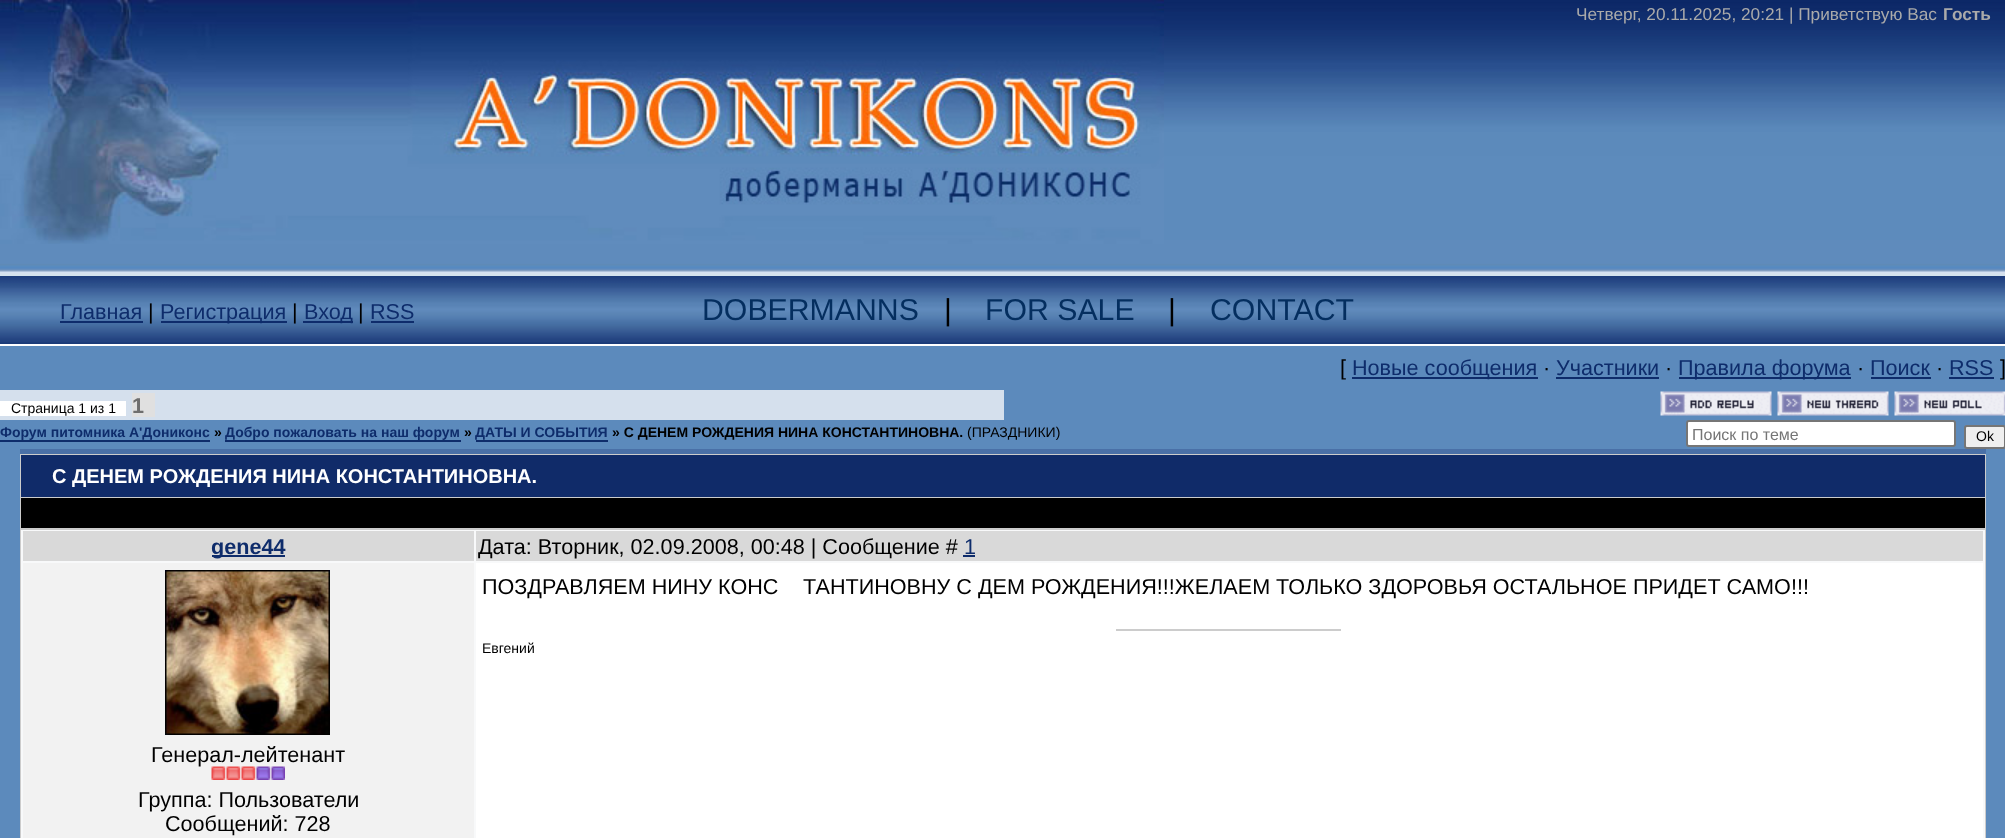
async function draw(canvas) {
	canvas.width = 2005;
	canvas.height = 838;
	const c = canvas.getContext('2d');
	c.miterLimit = 4;
	c.fontKerning = 'normal';
	async function loadImage(src) {
		const img = new Image();
		img.src = src;
		await img.decode();
		return img;
	}

	c.fillStyle = '#5c8abc';
	c.fillRect(0, 0, 2005, 838);
	c.drawImage(await loadImage('img1.png'), 0, 0, 2005, 276);
	c.drawImage(await loadImage('img2.png'), 0, 0, 1164, 244);
	c.font = '17.25px Liberation Sans';
	c.fillStyle = '#aaa';
	c.fillText('Четверг, 20.11.2025, 20:21 | Приветствую Вас', 1576, 20);
	c.font = 'bold 17.25px Liberation Sans';
	c.fillText('Гость', 1943, 20);
	c.drawImage(await loadImage('img3.png'), 0, 276, 2005, 68);
	c.fillStyle = '#fff';
	c.fillRect(0, 344, 2005, 2);
	c.font = '21.6px Liberation Sans';
	c.fillStyle = '#0e2c6b';
	c.fillText('Главная', 60, 319);
	c.fillRect(60, 321, 83, 2);
	c.fillStyle = '#000';
	c.fillText('|', 148, 319);
	c.fillStyle = '#0e2c6b';
	c.fillRect(161, 321, 126, 2);
	c.fillText('Регистрация', 160, 319);
	c.fillStyle = '#000';
	c.fillText('|', 292, 319);
	c.fillStyle = '#0e2c6b';
	c.fillRect(303, 321, 50, 2);
	c.fillText('Вход', 304, 319);
	c.fillStyle = '#000';
	c.fillText('|', 358, 319);
	c.fillStyle = '#0e2c6b';
	c.fillText('RSS', 370, 319);
	c.fillRect(371, 321, 43, 2);
	c.font = '30.25px Liberation Sans';
	c.fillStyle = '#042e5f';
	c.fillText('DOBERMANNS', 702, 320);
	c.fillStyle = '#000';
	c.fillText('|', 944, 320);
	c.fillStyle = '#042e5f';
	c.fillText('FOR SALE', 985, 320);
	c.fillStyle = '#000';
	c.fillText('|', 1168, 320);
	c.fillStyle = '#042e5f';
	c.fillText('CONTACT', 1210, 320);
	c.font = '21.6px Liberation Sans';
	c.fillStyle = '#000';
	c.fillText('[', 1340, 375);
	c.fillStyle = '#0e2c6b';
	c.fillRect(1352, 377, 186, 2);
	c.fillText('Новые сообщения', 1352, 375);
	c.fillStyle = '#000';
	c.fillText('·', 1543, 375);
	c.fillStyle = '#0e2c6b';
	c.fillText('Участники', 1556, 375);
	c.fillRect(1556, 377, 103, 2);
	c.fillStyle = '#000';
	c.fillText('·', 1665, 375);
	c.fillStyle = '#0e2c6b';
	c.fillRect(1679, 377, 172, 2);
	c.fillText('Правила форума', 1678, 375);
	c.fillStyle = '#000';
	c.fillText('·', 1857, 375);
	c.fillStyle = '#0e2c6b';
	c.fillText('Поиск', 1870, 375);
	c.fillRect(1871, 377, 60, 2);
	c.fillStyle = '#000';
	c.fillText('·', 1936, 375);
	c.fillStyle = '#0e2c6b';
	c.fillText('RSS', 1949, 375);
	c.fillRect(1949, 377, 45, 2);
	c.fillStyle = '#000';
	c.fillText(']', 2000, 375);
	c.fillStyle = '#d5e0ed';
	c.fillRect(0, 390, 1004, 30);
	c.fillStyle = '#fff';
	c.fillRect(0, 401, 126, 15);
	c.font = '14px Liberation Sans';
	c.fillStyle = '#000';
	c.fillText('Страница 1 из 1', 11, 413);
	c.fillStyle = '#e0e0e0';
	c.fillRect(132, 393, 23, 24);
	c.font = 'bold 21.6px Liberation Sans';
	c.fillStyle = '#6e6e6e';
	c.fillText('1', 132, 413);
	c.drawImage(await loadImage('img4.png'), 1660, 391, 112, 25);
	c.drawImage(await loadImage('img5.png'), 1777, 391, 112, 25);
	c.drawImage(await loadImage('img6.png'), 1894, 391, 111, 25);
	c.font = 'bold 14px Liberation Sans';
	c.fillStyle = '#0e2c6b';
	c.fillText('Форум питомника А\'Дониконс', 0, 437);
	c.fillRect(0, 440, 210, 2);
	c.fillStyle = '#000';
	c.fillText('»', 214, 437);
	c.fillStyle = '#0e2c6b';
	c.fillText('Добро пожаловать на наш форум', 225, 437);
	c.fillRect(225, 440, 236, 2);
	c.fillStyle = '#000';
	c.fillText('»', 464, 437);
	c.fillStyle = '#0e2c6b';
	c.fillText('ДАТЫ И СОБЫТИЯ', 475, 437);
	c.fillRect(476, 440, 132, 2);
	c.fillStyle = '#000';
	c.fillText('» С ДЕНЕМ РОЖДЕНИЯ НИНА КОНСТАНТИНОВНА.', 612, 437);
	c.font = '14px Liberation Sans';
	c.fillText('(ПРАЗДНИКИ)', 967, 437);
	c.fillStyle = '#fff';
	c.beginPath();
	c.roundRect(1687, 421, 268, 25, 2);
	c.fill();
	c.strokeStyle = '#767676';
	c.lineWidth = 2;
	c.stroke();
	c.font = '16px Liberation Sans';
	c.fillStyle = '#757575';
	c.fillText('Поиск по теме', 1692, 440);
	c.fillStyle = '#efefef';
	c.beginPath();
	c.roundRect(1965, 426, 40, 22, 2);
	c.fill();
	c.stroke();
	c.font = '14px Liberation Sans';
	c.fillStyle = '#000';
	c.fillText('Ok', 1976, 441);
	for (const [x, y, w, h, color] of [
		[20, 454, 1966, 384, '#ccc'],
		[20, 449, 1966, 5, '#4a70a7'],
		[21, 455, 1964, 42, '#102b69'],
	]) {
		c.fillStyle = color;
		c.fillRect(x, y, w, h);
	}
	c.font = 'bold 20px Liberation Sans';
	c.fillStyle = '#fff';
	c.fillText('С ДЕНЕМ РОЖДЕНИЯ НИНА КОНСТАНТИНОВНА.', 52, 483);
	for (const [x, y, w, h, color] of [
		[21, 498, 1964, 30, '#000'],
		[21, 530, 1964, 308, '#f8f9fa'],
		[23, 531, 451, 30, '#d9d9d9'],
		[212, 555, 73, 2, '#0e2c6b'],
	]) {
		c.fillStyle = color;
		c.fillRect(x, y, w, h);
	}
	c.font = 'bold 21.6px Liberation Sans';
	c.fillText('gene44', 211, 554);
	c.fillStyle = '#d9d9d9';
	c.fillRect(476, 531, 1507, 30);
	c.font = '21.6px Liberation Sans';
	c.fillStyle = '#000';
	c.fillText('Дата: Вторник, 02.09.2008, 00:48 | Сообщение #', 478, 554);
	c.fillStyle = '#0e2c6b';
	c.fillText('1', 964, 554);
	c.fillRect(963, 555, 12, 2);
	c.fillStyle = '#fff';
	c.fillRect(476, 563, 1507, 275);
	c.fillStyle = '#000';
	c.fillText('ПОЗДРАВЛЯЕМ НИНУ КОНС', 482, 594);
	c.fillText('ТАНТИНОВНУ С ДЕМ РОЖДЕНИЯ!!!ЖЕЛАЕМ ТОЛЬКО ЗДОРОВЬЯ ОСТАЛЬНОЕ ПРИДЕТ САМО!!!', 803, 594);
	c.fillStyle = '#ccc';
	c.fillRect(1116, 629, 225, 2);
	c.font = '14px Liberation Sans';
	c.fillStyle = '#000';
	c.fillText('Евгений', 482, 653);
	c.fillStyle = '#f2f2f2';
	c.fillRect(23, 563, 451, 275);
	c.drawImage(await loadImage('img7.png'), 165, 570, 165, 165);
	c.font = '21.6px Liberation Sans';
	c.fillStyle = '#000';
	c.fillText('Генерал-лейтенант', 151, 762);
	c.drawImage(await loadImage('img8.png'), 211, 766, 74, 14);
	c.fillText('Группа: Пользователи', 138, 807);
	c.fillText('Сообщений: 728', 165, 831);
}

draw(document.querySelector('canvas'));
